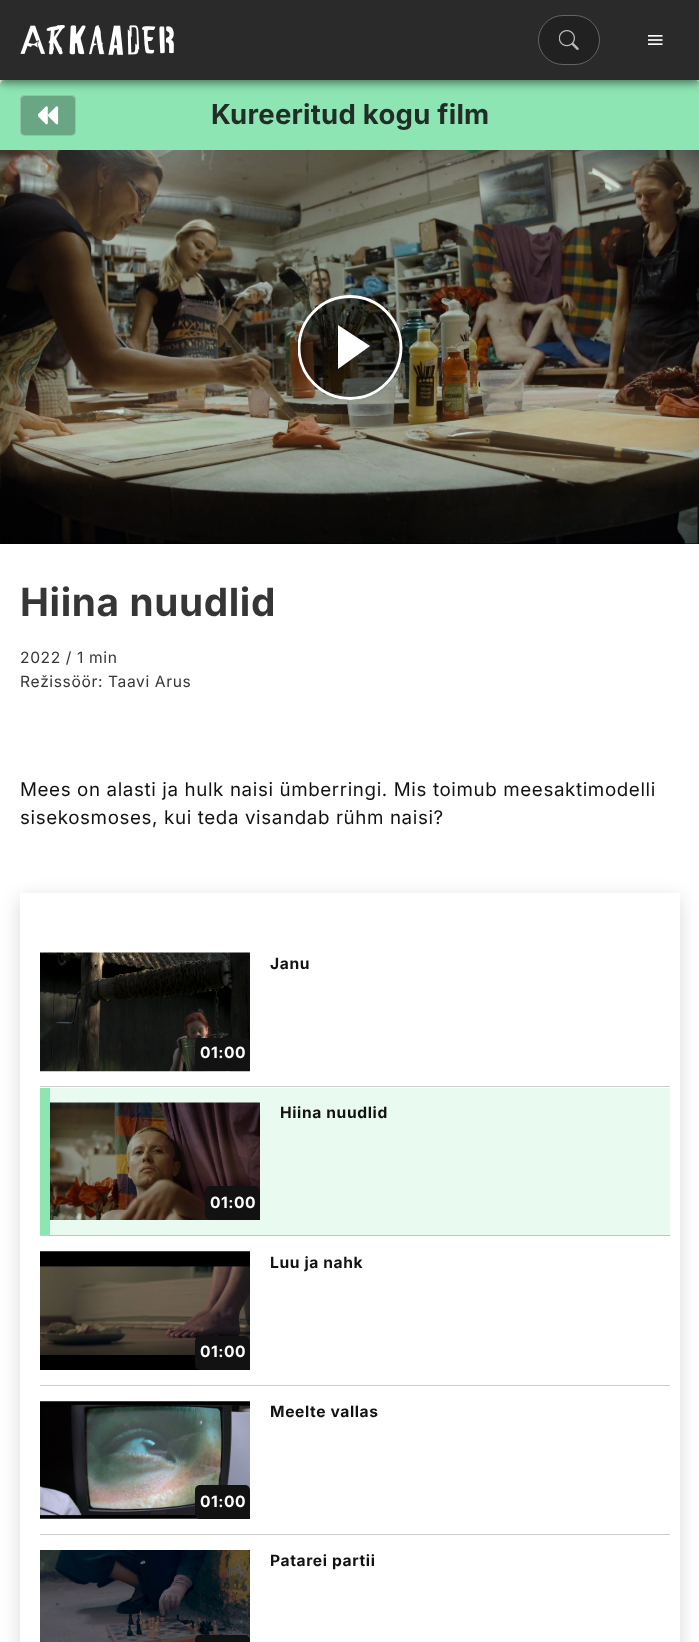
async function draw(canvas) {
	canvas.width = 699;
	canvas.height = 1642;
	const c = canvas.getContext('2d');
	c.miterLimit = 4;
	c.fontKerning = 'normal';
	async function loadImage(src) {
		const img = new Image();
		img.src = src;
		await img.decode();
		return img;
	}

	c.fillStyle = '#fff';
	c.fillRect(0, 0, 699, 1642);
	c.fillStyle = '#8ee5b4';
	c.beginPath();
	c.moveTo(5, 80);
	c.lineTo(695, 80);
	c.bezierCurveTo(698, 80, 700, 82, 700, 85);
	c.lineTo(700, 150);
	c.lineTo(0, 150);
	c.lineTo(0, 85);
	c.bezierCurveTo(0, 82, 2, 80, 5, 80);
	c.closePath();
	c.fill();
	c.fillStyle = '#69a683';
	c.beginPath();
	c.roundRect(20, 95, 56, 41, 5);
	c.fill();
	c.beginPath();
	c.roundRect(20.5, 95.5, 55, 40, 4.5);
	c.strokeStyle = '#ffffff4d';
	c.stroke();
	c.fillStyle = '#00000080';
	c.filter = 'blur(5px)';
	c.beginPath();
	c.rect(0, 3, 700, 80);
	c.fill();
	c.filter = 'none';
	c.fillStyle = '#2a2a2a';
	c.fillRect(0, 0, 699, 80);
	c.drawImage(await loadImage('img1.png'), 20, 25, 154, 30);
	c.fillStyle = '#212121';
	c.beginPath();
	c.roundRect(538, 15, 62, 50, 25);
	c.fill();
	c.beginPath();
	c.roundRect(538.5, 15.5, 61, 49, 24.5);
	c.stroke();
	c.drawImage(await loadImage('img2.png'), 559, 30, 20, 20);
	c.drawImage(await loadImage('img3.png'), 648, 35, 15, 10);
	c.drawImage(await loadImage('img4.png'), 38, 106, 21, 19);
	c.letterSpacing = '0.25px';
	c.font = 'bold 27.5px Inter';
	c.fillStyle = '#222d27';
	c.fillText('Kureeritud kogu film', 211, 124);
	c.fillStyle = '#000';
	c.fillRect(0, 543, 699, 1);
	c.drawImage(await loadImage('img5.png'), 0, 150, 699, 394);
	c.fillStyle = '#00000066';
	c.beginPath();
	c.arc(350.5, 347.5, 52.5, 0, 2 * Math.PI);
	c.fill();
	c.fillStyle = '#00000026';
	c.beginPath();
	c.arc(350, 347.5, 51, 0, 2 * Math.PI);
	c.fill();
	c.save();
	c.beginPath();
	c.rect(298, 295, 105, 105);
	c.clip();
	c.beginPath();
	c.arc(350, 347.5, 51, 0, 2 * Math.PI);
	c.strokeStyle = '#fff';
	c.lineWidth = 2.9;
	c.stroke();
	c.restore();
	c.fillStyle = '#fff';
	c.beginPath();
	c.moveTo(338, 369);
	c.lineTo(338, 325);
	c.lineTo(370, 346);
	c.closePath();
	c.fill('evenodd');
	c.letterSpacing = '0.62px';
	c.font = 'bold 38.75px Inter';
	c.fillStyle = '#363636';
	c.fillText('Hiina nuudlid', 20, 616);
	c.font = '15.6px Inter';
	c.fillText('2022 / 1 min', 20, 663);
	c.fillText('Režissöör: Taavi Arus', 20, 687);
	c.font = '18.75px Inter';
	c.fillStyle = '#121212';
	c.fillText('Mees on alasti ja hulk naisi ümberringi. Mis toimub meesaktimodelli', 20, 796);
	c.fillText('sisekosmoses, kui teda visandab rühm naisi?', 20, 824);
	c.save();
	c.beginPath();
	c.moveTo(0, 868);
	c.lineTo(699, 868);
	c.lineTo(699, 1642);
	c.lineTo(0, 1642);
	c.closePath();
	c.moveTo(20, 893);
	c.lineTo(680, 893);
	c.lineTo(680, 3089);
	c.lineTo(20, 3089);
	c.closePath();
	c.clip('evenodd');
	c.fillStyle = '#00000026';
	c.filter = 'blur(9.5px)';
	c.beginPath();
	c.rect(20, 898, 660, 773);
	c.fill();
	c.filter = 'none';
	c.restore();
	c.fillStyle = '#ccc';
	c.fillRect(40, 1086, 630, 1);
	c.font = 'bold 15.6px Inter';
	c.fillStyle = '#121212';
	c.fillText('Janu', 270, 969);
	c.drawImage(await loadImage('img6.png'), 40, 952, 210, 120);
	c.beginPath();
	c.roundRect(195, 1038, 55, 33, [5, 5, 0, 5]);
	c.fill();
	c.letterSpacing = '0.5px';
	c.fillStyle = '#fff';
	c.fillText('01:00', 200, 1058);
	c.fillStyle = '#e9faf0';
	c.fillRect(40, 1088, 630, 148);
	c.fillStyle = '#bac8c0';
	c.beginPath();
	c.moveTo(670, 1236);
	c.lineTo(40, 1236);
	c.lineTo(50, 1235);
	c.lineTo(670, 1235);
	c.closePath();
	c.fill();
	c.fillStyle = '#8ee5b4';
	c.beginPath();
	c.moveTo(40, 1236);
	c.lineTo(40, 1088);
	c.lineTo(50, 1088);
	c.lineTo(50, 1235);
	c.closePath();
	c.fill();
	c.letterSpacing = '0.62px';
	c.fillStyle = '#121212';
	c.fillText('Hiina nuudlid', 280, 1118);
	c.drawImage(await loadImage('img7.png'), 50, 1102, 210, 118);
	c.beginPath();
	c.roundRect(205, 1186, 55, 34, [5, 5, 0, 5]);
	c.fill();
	c.letterSpacing = '0.5px';
	c.fillStyle = '#fff';
	c.fillText('01:00', 210, 1208);
	c.fillStyle = '#ccc';
	c.fillRect(40, 1385, 630, 1);
	c.letterSpacing = '0.62px';
	c.fillStyle = '#121212';
	c.fillText('Luu ja nahk', 270, 1268);
	c.drawImage(await loadImage('img8.png'), 40, 1251, 210, 119);
	c.beginPath();
	c.roundRect(195, 1336, 55, 34, [5, 5, 0, 5]);
	c.fill();
	c.letterSpacing = '0.5px';
	c.fillStyle = '#fff';
	c.fillText('01:00', 200, 1357);
	c.fillStyle = '#ccc';
	c.fillRect(40, 1534, 630, 1);
	c.letterSpacing = '0.62px';
	c.fillStyle = '#121212';
	c.fillText('Meelte vallas', 270, 1417);
	c.drawImage(await loadImage('img9.png'), 40, 1401, 210, 118);
	c.beginPath();
	c.roundRect(195, 1485, 55, 34, [5, 5, 0, 5]);
	c.fill();
	c.letterSpacing = '0.5px';
	c.fillStyle = '#fff';
	c.fillText('01:00', 200, 1507);
	c.drawImage(await loadImage('img10.png'), 40, 1550, 210, 92);
	c.fillStyle = '#121212';
	c.beginPath();
	c.moveTo(200, 1635);
	c.lineTo(245, 1635);
	c.bezierCurveTo(248, 1635, 250, 1637, 250, 1640);
	c.lineTo(250, 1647);
	c.lineTo(200, 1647);
	c.bezierCurveTo(197, 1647, 195, 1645, 195, 1642);
	c.lineTo(195, 1640);
	c.bezierCurveTo(195, 1637, 197, 1635, 200, 1635);
	c.closePath();
	c.fill();
	c.letterSpacing = '0.62px';
	c.fillText('Patarei partii', 270, 1566);
}

draw(document.querySelector('canvas'));
